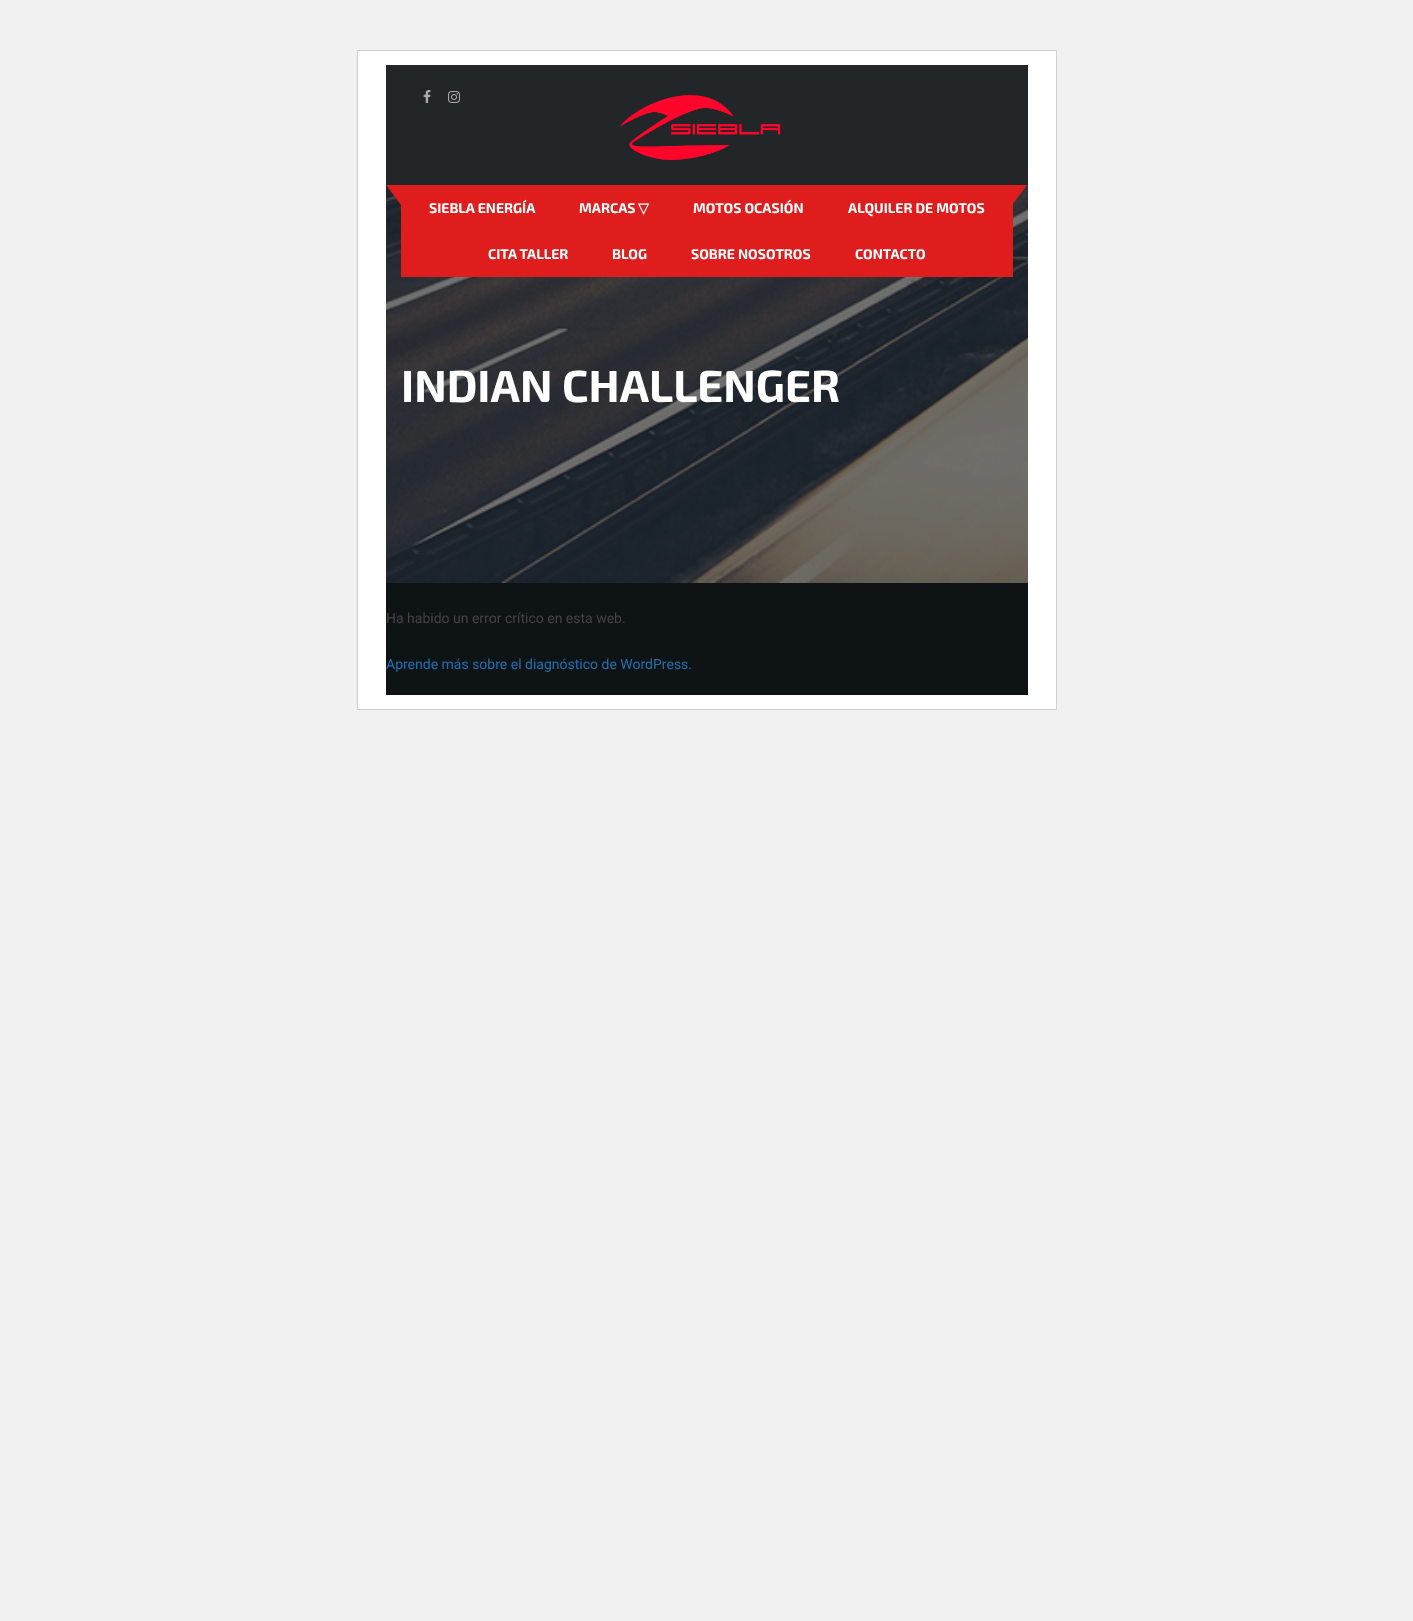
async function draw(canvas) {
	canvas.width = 1413;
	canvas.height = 1621;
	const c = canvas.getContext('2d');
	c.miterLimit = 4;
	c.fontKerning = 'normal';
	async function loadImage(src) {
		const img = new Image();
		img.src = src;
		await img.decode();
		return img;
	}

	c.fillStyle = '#f1f1f1';
	c.fillRect(0, 0, 1413, 1621);
	c.fillStyle = '#fff';
	c.beginPath();
	c.rect(357.5, 50.5, 699, 659);
	c.fill();
	c.strokeStyle = '#ccd0d4';
	c.stroke();
	c.fillStyle = '#0e1315';
	c.fillRect(386, 583, 642, 112);
	c.fillStyle = '#232628';
	c.fillRect(386, 65, 642, 120);
	c.drawImage(await loadImage('img1.png'), 423, 90, 8, 13);
	c.drawImage(await loadImage('img2.png'), 448, 91, 12, 12);
	c.drawImage(await loadImage('img3.png'), 620, 95, 161, 65);
	c.drawImage(await loadImage('img4.png'), 386, 185, 642, 398);
	c.fillStyle = '#df1d1d';
	c.beginPath();
	c.moveTo(386, 185);
	c.lineTo(586, 185);
	c.lineTo(655, 277);
	c.lineTo(455, 277);
	c.closePath();
	c.fill();
	c.beginPath();
	c.moveTo(827, 185);
	c.lineTo(1027, 185);
	c.lineTo(958, 277);
	c.lineTo(758, 277);
	c.closePath();
	c.fill();
	c.fillRect(401, 185, 612, 92);
	c.font = 'bold 14px "Exo 2"';
	c.fillStyle = '#fff';
	c.fillText('SIEBLA ENERGÍA', 429, 213);
	c.fillText('MARCAS', 579, 213);
	c.font = 'bold 14px DejaVu Sans';
	c.fillText('▽', 638, 213);
	c.font = 'bold 14px "Exo 2"';
	for (const [text, x, y] of [
		['MOTOS OCASIÓN', 693, 213],
		['ALQUILER DE MOTOS', 848, 213],
		['CITA TALLER', 488, 259],
		['BLOG', 612, 259],
		['SOBRE NOSOTROS', 691, 259],
		['CONTACTO', 855, 259],
	]) {
		c.fillText(text, x, y);
	}
	c.font = 'bold 45px "Exo 2"';
	c.fillText('INDIAN CHALLENGER', 401, 402);
	c.font = '14px Roboto';
	c.fillStyle = '#444';
	c.fillText('Ha habido un error crítico en esta web.', 386, 623);
	c.fillStyle = '#2271b1';
	c.fillText('Aprende más sobre el diagnóstico de WordPress.', 386, 669);
}

draw(document.querySelector('canvas'));
